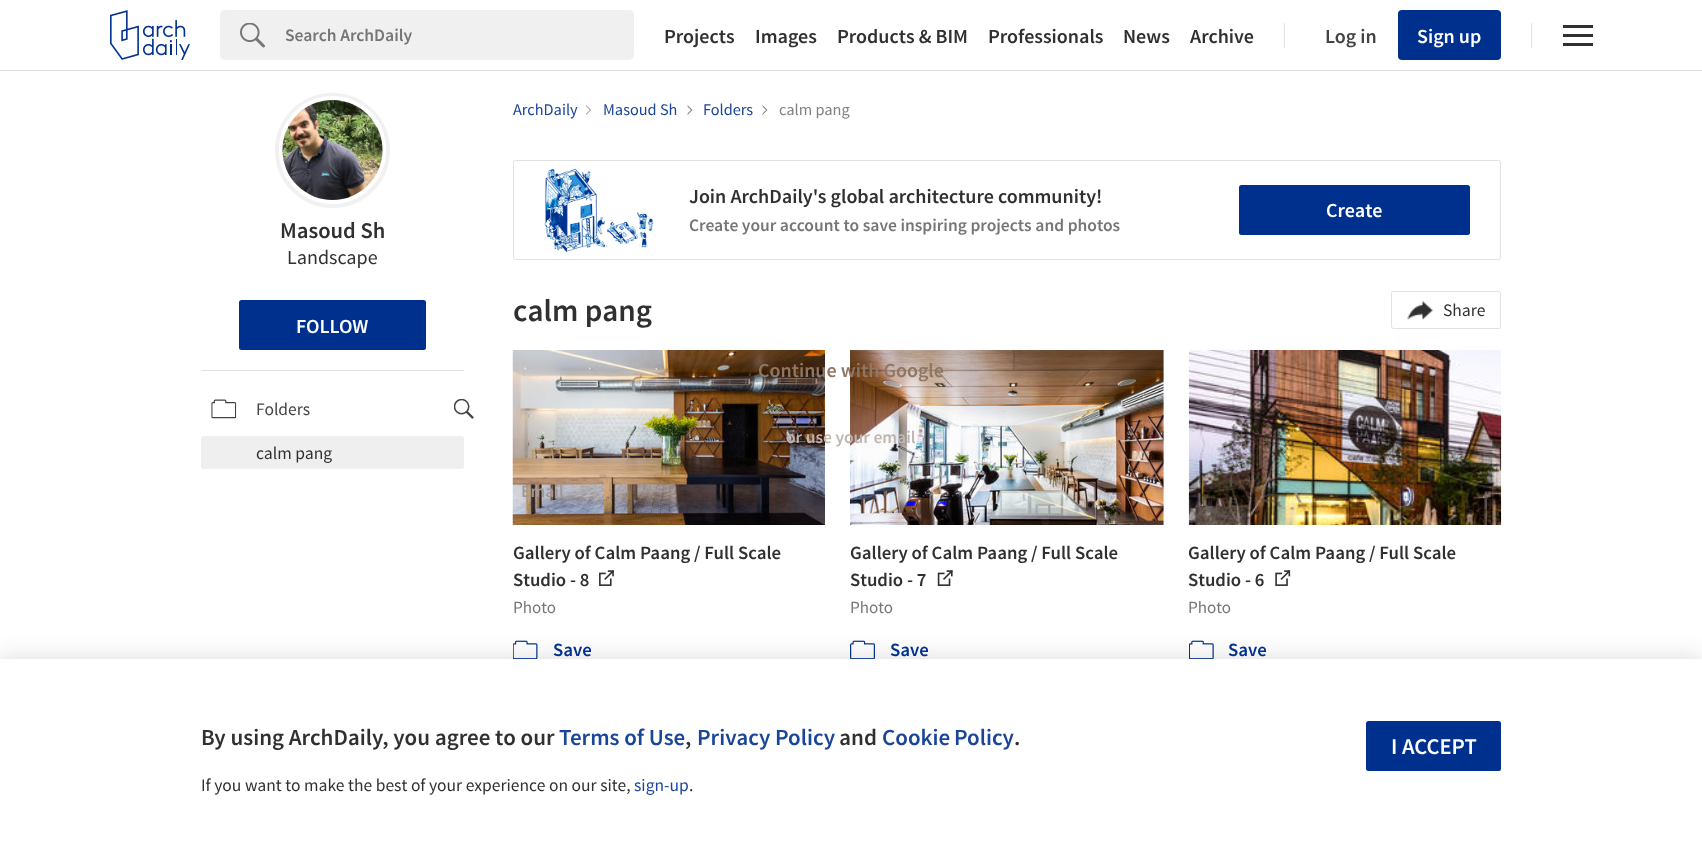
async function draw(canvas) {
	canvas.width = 1702;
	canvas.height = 856;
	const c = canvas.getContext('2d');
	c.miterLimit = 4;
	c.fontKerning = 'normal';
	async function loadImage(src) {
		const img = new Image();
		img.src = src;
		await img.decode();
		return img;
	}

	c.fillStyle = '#fff';
	c.fillRect(0, 0, 1702, 856);
	c.fillStyle = '#e1e1e1';
	c.fillRect(0, 70, 1702, 1);
	c.drawImage(await loadImage('img1.png'), 110, 10, 80, 50);
	c.fillStyle = '#f0f0f0';
	c.beginPath();
	c.roundRect(220, 10, 414, 50, 5);
	c.fill();
	c.drawImage(await loadImage('img2.png'), 240, 23, 25, 25);
	c.font = '600 17.5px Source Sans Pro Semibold';
	c.fillStyle = '#767676';
	c.fillText('Search ArchDaily', 285, 41);
	c.font = '600 20px Source Sans Pro Semibold';
	c.fillStyle = '#303030';
	for (const [text, x, y] of [
		['Projects', 664, 43],
		['Images', 755, 43],
		['Products & BIM', 837, 43],
		['Professionals', 988, 43],
		['News', 1123, 43],
		['Archive', 1190, 43],
	]) {
		c.fillText(text, x, y);
	}
	c.fillStyle = '#e1e1e1';
	c.fillRect(1284, 23, 1, 25);
	c.fillStyle = '#444';
	c.fillText('Log in', 1325, 43);
	c.fillStyle = '#00308e';
	c.beginPath();
	c.roundRect(1398, 10, 103, 50, 4);
	c.fill();
	c.fillStyle = '#fff';
	c.fillText('Sign up', 1417, 43);
	for (const [x, y, w, h, color] of [
		[1531, 23, 1, 25, '#e1e1e1'],
		[1563, 34, 30, 3, '#303030'],
		[1563, 25, 30, 3, '#303030'],
		[1563, 43, 30, 3, '#303030'],
	]) {
		c.fillStyle = color;
		c.fillRect(x, y, w, h);
	}
	c.drawImage(await loadImage('img10.png'), 513, 640, 25, 19);
	c.drawImage(await loadImage('img13.png'), 850, 640, 25, 19);
	c.drawImage(await loadImage('img16.png'), 1189, 640, 25, 19);
	c.fillStyle = '#00000026';
	c.filter = 'blur(12.5px)';
	c.beginPath();
	c.rect(0, 659, 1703, 197);
	c.fill();
	c.filter = 'none';
	c.fillStyle = '#fff';
	c.fillRect(0, 659, 1702, 197);
	c.font = '600 23px Source Sans Pro Semibold';
	c.fillStyle = '#303030';
	c.fillText('By using ArchDaily, you agree to our', 201, 745);
	c.fillStyle = '#1a4599';
	c.fillText('Terms of Use', 559, 745);
	c.fillStyle = '#303030';
	c.fillText(',', 685, 745);
	c.fillStyle = '#1a4599';
	c.fillText('Privacy Policy', 697, 745);
	c.fillStyle = '#303030';
	c.fillText('and', 839, 745);
	c.wordSpacing = '-1px';
	c.fillStyle = '#1a4599';
	c.fillText('Cookie Policy', 882, 745);
	c.wordSpacing = '0px';
	c.fillStyle = '#303030';
	c.fillText('.', 1014, 745);
	c.font = '17.5px Source Sans Pro';
	c.fillText('If you want to make the best of your experience on our site,', 201, 791);
	c.fillStyle = '#1a4599';
	c.fillText('sign-up', 634, 791);
	c.fillStyle = '#303030';
	c.fillText('.', 689, 791);
	c.fillStyle = '#00308e';
	c.beginPath();
	c.roundRect(1366, 721, 135, 50, 2.5);
	c.fill();
	c.font = '600 22.5px Source Sans Pro Semibold';
	c.fillStyle = '#fff';
	c.fillText('I ACCEPT', 1391, 754);
	c.beginPath();
	c.arc(332.5, 150.5, 53.5, 0, 2 * Math.PI);
	c.strokeStyle = '#f1f1f1';
	c.lineWidth = 8;
	c.stroke();
	c.beginPath();
	c.roundRect(281, 98, 103, 104, 51.5);
	c.strokeStyle = '#fff';
	c.lineWidth = 4;
	c.stroke();
	c.drawImage(await loadImage('img3.png'), 282, 100, 101, 100);
	c.fillStyle = '#303030';
	c.fillText('Masoud Sh', 280, 238);
	c.font = '20px Source Sans Pro';
	c.fillText('Landscape', 287, 264);
	c.fillStyle = '#00308e';
	c.beginPath();
	c.roundRect(239, 300, 187, 50, 2.5);
	c.fill();
	c.font = '600 20px Source Sans Pro Semibold';
	c.fillStyle = '#fff';
	c.fillText('FOLLOW', 296, 333);
	c.fillStyle = '#e1e1e1';
	c.fillRect(201, 370, 263, 1);
	c.drawImage(await loadImage('img4.png'), 211, 399, 26, 20);
	c.font = '17.5px Source Sans Pro';
	c.fillStyle = '#444';
	c.fillText('Folders', 256, 415);
	c.drawImage(await loadImage('img5.png'), 454, 399, 20, 20);
	c.fillStyle = '#efefef';
	c.beginPath();
	c.roundRect(201, 436, 263, 33, 2.5);
	c.fill();
	c.fillStyle = '#303030';
	c.fillText('calm pang', 256, 459);
	c.font = '16.25px Source Sans Pro';
	c.fillStyle = '#1a4599';
	c.fillText('ArchDaily', 513, 115);
	c.fillStyle = '#828282';
	c.beginPath();
	c.moveTo(586, 115);
	c.lineTo(586, 105);
	c.lineTo(591, 110);
	c.closePath();
	c.fill();
	c.fillStyle = '#fff';
	c.beginPath();
	c.moveTo(585, 115);
	c.lineTo(585, 105);
	c.lineTo(590, 110);
	c.closePath();
	c.fill();
	c.fillStyle = '#1a4599';
	c.fillText('Masoud Sh', 603, 115);
	c.fillStyle = '#828282';
	c.beginPath();
	c.moveTo(687.5, 115);
	c.lineTo(687.5, 105);
	c.lineTo(692.5, 110);
	c.closePath();
	c.fill();
	c.fillStyle = '#fff';
	c.beginPath();
	c.moveTo(686, 115);
	c.lineTo(686, 105);
	c.lineTo(691, 110);
	c.closePath();
	c.fill();
	c.fillStyle = '#1a4599';
	c.fillText('Folders', 703, 115);
	c.fillStyle = '#828282';
	c.beginPath();
	c.moveTo(762.5, 115);
	c.lineTo(762.5, 105);
	c.lineTo(767.5, 110);
	c.closePath();
	c.fill();
	c.fillStyle = '#fff';
	c.beginPath();
	c.moveTo(761, 115);
	c.lineTo(761, 105);
	c.lineTo(766, 110);
	c.closePath();
	c.fill();
	c.fillStyle = '#828282';
	c.fillText('calm pang', 779, 115);
	c.beginPath();
	c.roundRect(513.5, 160.5, 987, 99, 2);
	c.strokeStyle = '#e1e1e1';
	c.lineWidth = 1;
	c.stroke();
	c.drawImage(await loadImage('img6.png'), 544, 168, 110, 85);
	c.font = '600 20px Source Sans Pro Semibold';
	c.fillStyle = '#303030';
	c.fillText('Join ArchDaily\'s global architecture community!', 689, 203);
	c.font = '600 17.5px Source Sans Pro Semibold';
	c.fillStyle = '#767676';
	c.fillText('Create your account to save inspiring projects and photos', 689, 231);
	c.fillStyle = '#00308e';
	c.beginPath();
	c.roundRect(1239, 185, 231, 50, 2.5);
	c.fill();
	c.font = '600 20px Source Sans Pro Semibold';
	c.fillStyle = '#fff';
	c.fillText('Create', 1326, 217);
	c.font = '600 31.25px Source Sans Pro Semibold';
	c.fillStyle = '#303030';
	c.fillText('calm pang', 513, 321);
	c.beginPath();
	c.roundRect(1391.5, 291.5, 109, 37, 2);
	c.stroke();
	c.drawImage(await loadImage('img7.png'), 1407, 301, 26, 19);
	c.font = '17.5px Source Sans Pro';
	c.fillText('Share', 1443, 316);
	c.drawImage(await loadImage('img8.png'), 512, 350, 313, 175);
	c.font = '600 18.75px Source Sans Pro Semibold';
	c.fillText('Gallery of Calm Paang / Full Scale', 513, 559);
	c.fillText('Studio - 8', 513, 586);
	c.drawImage(await loadImage('img9.png'), 599, 570, 15, 16);
	c.font = '17px Source Sans Pro';
	c.fillStyle = '#767676';
	c.fillText('Photo', 513, 613);
	c.font = '600 18.75px Source Sans Pro Semibold';
	c.fillStyle = '#00308e';
	c.fillText('Save', 553, 656);
	c.drawImage(await loadImage('img11.png'), 850, 350, 314, 175);
	c.fillStyle = '#303030';
	c.fillText('Gallery of Calm Paang / Full Scale', 850, 559);
	c.fillText('Studio - 7', 850, 586);
	c.drawImage(await loadImage('img12.png'), 937, 570, 16, 16);
	c.font = '17px Source Sans Pro';
	c.fillStyle = '#767676';
	c.fillText('Photo', 850, 613);
	c.font = '600 18.75px Source Sans Pro Semibold';
	c.fillStyle = '#00308e';
	c.fillText('Save', 890, 656);
	c.drawImage(await loadImage('img14.png'), 1188, 350, 314, 175);
	c.fillStyle = '#303030';
	c.fillText('Gallery of Calm Paang / Full Scale', 1188, 559);
	c.fillText('Studio - 6', 1188, 586);
	c.drawImage(await loadImage('img15.png'), 1275, 570, 16, 16);
	c.font = '17px Source Sans Pro';
	c.fillStyle = '#767676';
	c.fillText('Photo', 1188, 613);
	c.font = '600 18.75px Source Sans Pro Semibold';
	c.fillStyle = '#00308e';
	c.fillText('Save', 1228, 656);
	c.font = '600 20px Source Sans Pro Semibold';
	c.fillStyle = '#8f7766';
	c.fillText('Continue with Google', 758, 377);
	c.font = '600 17.5px Source Sans Pro Semibold';
	c.fillStyle = '#bfb5b1';
	c.fillText('or use your email', 786, 443);
	c.fillStyle = '#a29896';
	c.fillText('Email', 521, 497);
}

draw(document.querySelector('canvas'));
